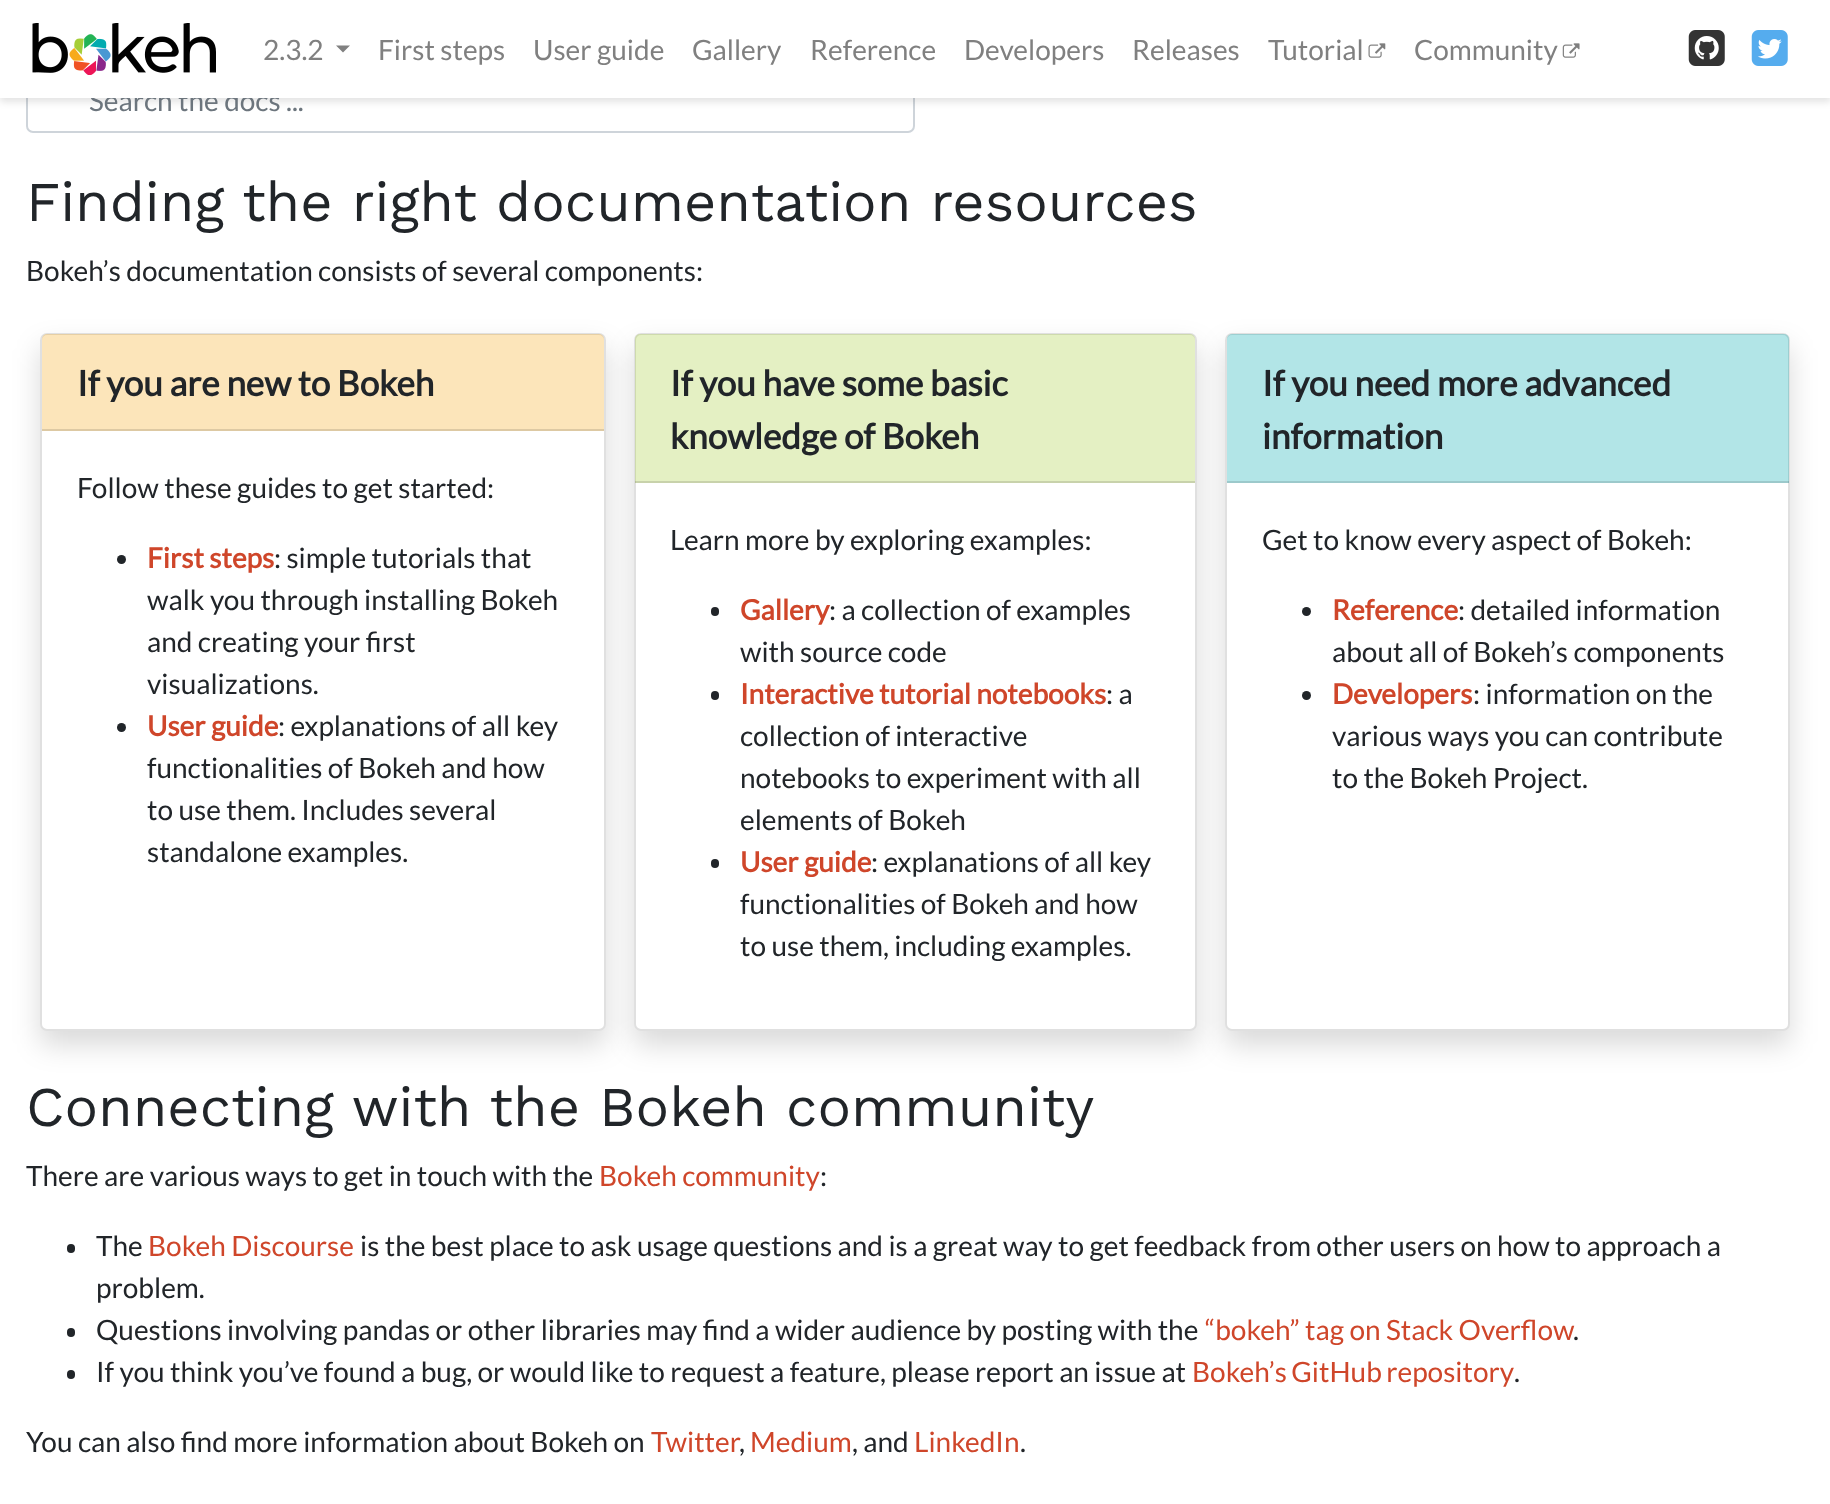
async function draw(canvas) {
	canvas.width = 1830;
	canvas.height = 1504;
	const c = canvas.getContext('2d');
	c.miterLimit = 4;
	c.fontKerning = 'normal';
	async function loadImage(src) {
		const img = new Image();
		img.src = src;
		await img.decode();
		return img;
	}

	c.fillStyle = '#fff';
	c.fillRect(0, 0, 1830, 1504);
	c.beginPath();
	c.roundRect(27, 68, 887, 64, 6);
	c.strokeStyle = '#ced4da';
	c.lineWidth = 2;
	c.stroke();
	c.fillStyle = '#0000001c';
	c.filter = 'blur(3.5px)';
	c.beginPath();
	c.rect(0, 4, 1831, 98);
	c.fill();
	c.filter = 'none';
	c.font = '28px Lato';
	c.fillStyle = '#6c757d';
	c.fillText('Search the docs ...', 89, 111);
	c.fillStyle = '#fff';
	c.fillRect(0, 0, 1830, 98);
	c.drawImage(await loadImage('img1.png'), 32, 23, 184, 52);
	c.fillStyle = '#808080';
	c.fillText('2.3.2', 263, 60);
	c.beginPath();
	c.moveTo(336, 45.5);
	c.lineTo(350, 45.5);
	c.lineTo(343, 52.5);
	c.closePath();
	c.fill();
	for (const [text, x, y] of [
		['First steps', 378, 60],
		['User guide', 533, 60],
		['Gallery', 692, 60],
		['Reference', 810, 60],
		['Developers', 964, 60],
		['Releases', 1132, 60],
		['Tutorial', 1268, 60],
	]) {
		c.fillText(text, x, y);
	}
	c.drawImage(await loadImage('img2.png'), 1368, 43, 18, 15);
	c.fillText('Community', 1414, 60);
	c.drawImage(await loadImage('img3.png'), 1562, 43, 18, 15);
	c.drawImage(await loadImage('img4.png'), 1688, 30, 37, 36);
	c.drawImage(await loadImage('img5.png'), 1751, 30, 37, 36);
	c.font = '56px Work Sans';
	c.fillStyle = '#212529';
	c.fillText('Finding the right documentation resources', 26, 221);
	c.font = '28px Lato';
	c.fillText('Bokeh’s documentation consists of several components:', 26, 281);
	c.fillStyle = '#00000026';
	c.filter = 'blur(14px)';
	c.beginPath();
	c.roundRect(40, 347, 566, 698, 7);
	c.fill();
	c.filter = 'none';
	c.fillStyle = '#fff';
	c.beginPath();
	c.roundRect(40, 333, 566, 698, 7);
	c.fill();
	c.beginPath();
	c.roundRect(41, 334, 564, 696, 6);
	c.strokeStyle = '#0000001f';
	c.stroke();
	c.fillStyle = '#f6a91b4d';
	c.beginPath();
	c.roundRect(42, 334, 562, 97, [5, 5, 0, 0]);
	c.fill();
	c.fillStyle = '#ddc9a3';
	c.fillRect(42, 429, 562, 2);
	c.font = 'bold 35px Lato';
	c.fillStyle = '#212529';
	c.fillText('If you are new to Bokeh', 77, 396);
	c.font = '28px Lato';
	c.fillText('Follow these guides to get started:', 77, 498);
	c.beginPath();
	c.arc(121.5, 559.5, 4.5, 0, 2 * Math.PI);
	c.fill();
	c.font = 'bold 28px Lato';
	c.fillStyle = '#cf462a';
	c.fillText('First steps', 147, 568);
	c.font = '28px Lato';
	c.fillStyle = '#212529';
	for (const [text, x, y] of [
		[': simple tutorials that', 274, 568],
		['walk you through installing Bokeh', 147, 610],
		['and creating your first', 147, 652],
		['visualizations.', 147, 694],
	]) {
		c.fillText(text, x, y);
	}
	c.beginPath();
	c.arc(121.5, 727.5, 4.5, 0, 2 * Math.PI);
	c.fill();
	c.font = 'bold 28px Lato';
	c.fillStyle = '#cf462a';
	c.fillText('User guide', 147, 736);
	c.font = '28px Lato';
	c.fillStyle = '#212529';
	for (const [text, x, y] of [
		[': explanations of all key', 278, 736],
		['functionalities of Bokeh and how', 147, 778],
		['to use them. Includes several', 147, 820],
		['standalone examples.', 147, 862],
	]) {
		c.fillText(text, x, y);
	}
	c.fillStyle = '#00000026';
	c.filter = 'blur(14px)';
	c.beginPath();
	c.roundRect(634, 347, 563, 698, 7);
	c.fill();
	c.filter = 'none';
	c.fillStyle = '#fff';
	c.beginPath();
	c.roundRect(634, 333, 563, 698, 7);
	c.fill();
	c.beginPath();
	c.roundRect(635, 334, 561, 696, 6);
	c.stroke();
	c.fillStyle = '#a5cd394d';
	c.beginPath();
	c.roundRect(635, 334, 560, 149, [5, 5, 0, 0]);
	c.fill();
	c.fillStyle = '#0000001f';
	c.fillRect(635, 481, 560, 2);
	c.font = 'bold 35px Lato';
	c.fillStyle = '#212529';
	c.fillText('If you have some basic', 670, 396);
	c.fillText('knowledge of Bokeh', 670, 449);
	c.font = '28px Lato';
	c.fillText('Learn more by exploring examples:', 670, 550);
	c.beginPath();
	c.roundRect(711, 607, 8, 9, 4);
	c.fill();
	c.font = 'bold 28px Lato';
	c.fillStyle = '#cf462a';
	c.fillText('Gallery', 740, 620);
	c.font = '28px Lato';
	c.fillStyle = '#212529';
	c.fillText(': a collection of examples', 829, 620);
	c.fillText('with source code', 740, 662);
	c.beginPath();
	c.roundRect(711, 691, 8, 9, 4);
	c.fill();
	c.font = 'bold 28px Lato';
	c.fillStyle = '#cf462a';
	c.fillText('Interactive tutorial notebooks', 740, 704);
	c.font = '28px Lato';
	c.fillStyle = '#212529';
	for (const [text, x, y] of [
		[': a', 1106, 704],
		['collection of interactive', 740, 746],
		['notebooks to experiment with all', 740, 788],
		['elements of Bokeh', 740, 830],
	]) {
		c.fillText(text, x, y);
	}
	c.beginPath();
	c.roundRect(711, 859, 8, 9, 4);
	c.fill();
	c.font = 'bold 28px Lato';
	c.fillStyle = '#cf462a';
	c.fillText('User guide', 740, 872);
	c.font = '28px Lato';
	c.fillStyle = '#212529';
	for (const [text, x, y] of [
		[': explanations of all key', 871, 872],
		['functionalities of Bokeh and how', 740, 914],
		['to use them, including examples.', 740, 956],
	]) {
		c.fillText(text, x, y);
	}
	c.fillStyle = '#00000026';
	c.filter = 'blur(14px)';
	c.beginPath();
	c.roundRect(1225, 347, 565, 698, 7);
	c.fill();
	c.filter = 'none';
	c.fillStyle = '#fff';
	c.beginPath();
	c.roundRect(1225, 333, 565, 698, 7);
	c.fill();
	c.beginPath();
	c.roundRect(1226, 334, 563, 696, 6);
	c.stroke();
	c.fillStyle = '#00aaae4d';
	c.beginPath();
	c.roundRect(1227, 334, 562, 149, [5, 5, 0, 0]);
	c.fill();
	c.fillStyle = '#0000001f';
	c.fillRect(1227, 481, 562, 2);
	c.font = 'bold 35px Lato';
	c.fillStyle = '#212529';
	c.fillText('If you need more advanced', 1262, 396);
	c.fillText('information', 1262, 449);
	c.font = '28px Lato';
	c.fillText('Get to know every aspect of Bokeh:', 1262, 550);
	c.beginPath();
	c.arc(1306.5, 611.5, 4.5, 0, 2 * Math.PI);
	c.fill();
	c.font = 'bold 28px Lato';
	c.fillStyle = '#cf462a';
	c.fillText('Reference', 1332, 620);
	c.font = '28px Lato';
	c.fillStyle = '#212529';
	c.fillText(': detailed information', 1458, 620);
	c.fillText('about all of Bokeh’s components', 1332, 662);
	c.beginPath();
	c.arc(1306.5, 695.5, 4.5, 0, 2 * Math.PI);
	c.fill();
	c.font = 'bold 28px Lato';
	c.fillStyle = '#cf462a';
	c.fillText('Developers', 1332, 704);
	c.font = '28px Lato';
	c.fillStyle = '#212529';
	for (const [text, x, y] of [
		[': information on the', 1473, 704],
		['various ways you can contribute', 1332, 746],
		['to the Bokeh Project.', 1332, 788],
	]) {
		c.fillText(text, x, y);
	}
	c.font = '56px Work Sans';
	c.fillText('Connecting with the Bokeh community', 26, 1126);
	c.font = '28px Lato';
	c.fillText('There are various ways to get in touch with the', 26, 1186);
	c.fillStyle = '#cf462a';
	c.fillText('Bokeh community', 599, 1186);
	c.fillStyle = '#212529';
	c.fillText(':', 820, 1186);
	c.beginPath();
	c.roundRect(67, 1244, 8, 9, 4);
	c.fill();
	c.fillText('The', 96, 1256);
	c.fillStyle = '#cf462a';
	c.fillText('Bokeh Discourse', 148, 1256);
	c.fillStyle = '#212529';
	c.fillText('is the best place to ask usage questions and is a great way to get feedback from other users on how to approach a', 360, 1256);
	c.fillText('problem.', 96, 1298);
	c.beginPath();
	c.roundRect(67, 1328, 8, 9, 4);
	c.fill();
	c.fillText('Questions involving pandas or other libraries may find a wider audience by posting with the', 96, 1340);
	c.fillStyle = '#cf462a';
	c.fillText('“bokeh” tag on Stack Overflow', 1205, 1340);
	c.fillStyle = '#212529';
	c.fillText('.', 1573, 1340);
	c.beginPath();
	c.roundRect(67, 1370, 8, 9, 4);
	c.fill();
	c.fillText('If you think you’ve found a bug, or would like to request a feature, please report an issue at', 96, 1382);
	c.wordSpacing = '-1px';
	c.fillStyle = '#cf462a';
	c.fillText('Bokeh’s GitHub repository', 1192, 1382);
	c.wordSpacing = '0px';
	c.fillStyle = '#212529';
	c.fillText('.', 1514, 1382);
	c.fillText('You can also find more information about Bokeh on', 26, 1452);
	c.fillStyle = '#cf462a';
	c.fillText('Twitter', 651, 1452);
	c.fillStyle = '#212529';
	c.fillText(',', 739, 1452);
	c.fillStyle = '#cf462a';
	c.fillText('Medium', 750, 1452);
	c.fillStyle = '#212529';
	c.fillText(', and', 852, 1452);
	c.fillStyle = '#cf462a';
	c.fillText('LinkedIn', 914, 1452);
	c.fillStyle = '#212529';
	c.fillText('.', 1020, 1452);
}

draw(document.querySelector('canvas'));
